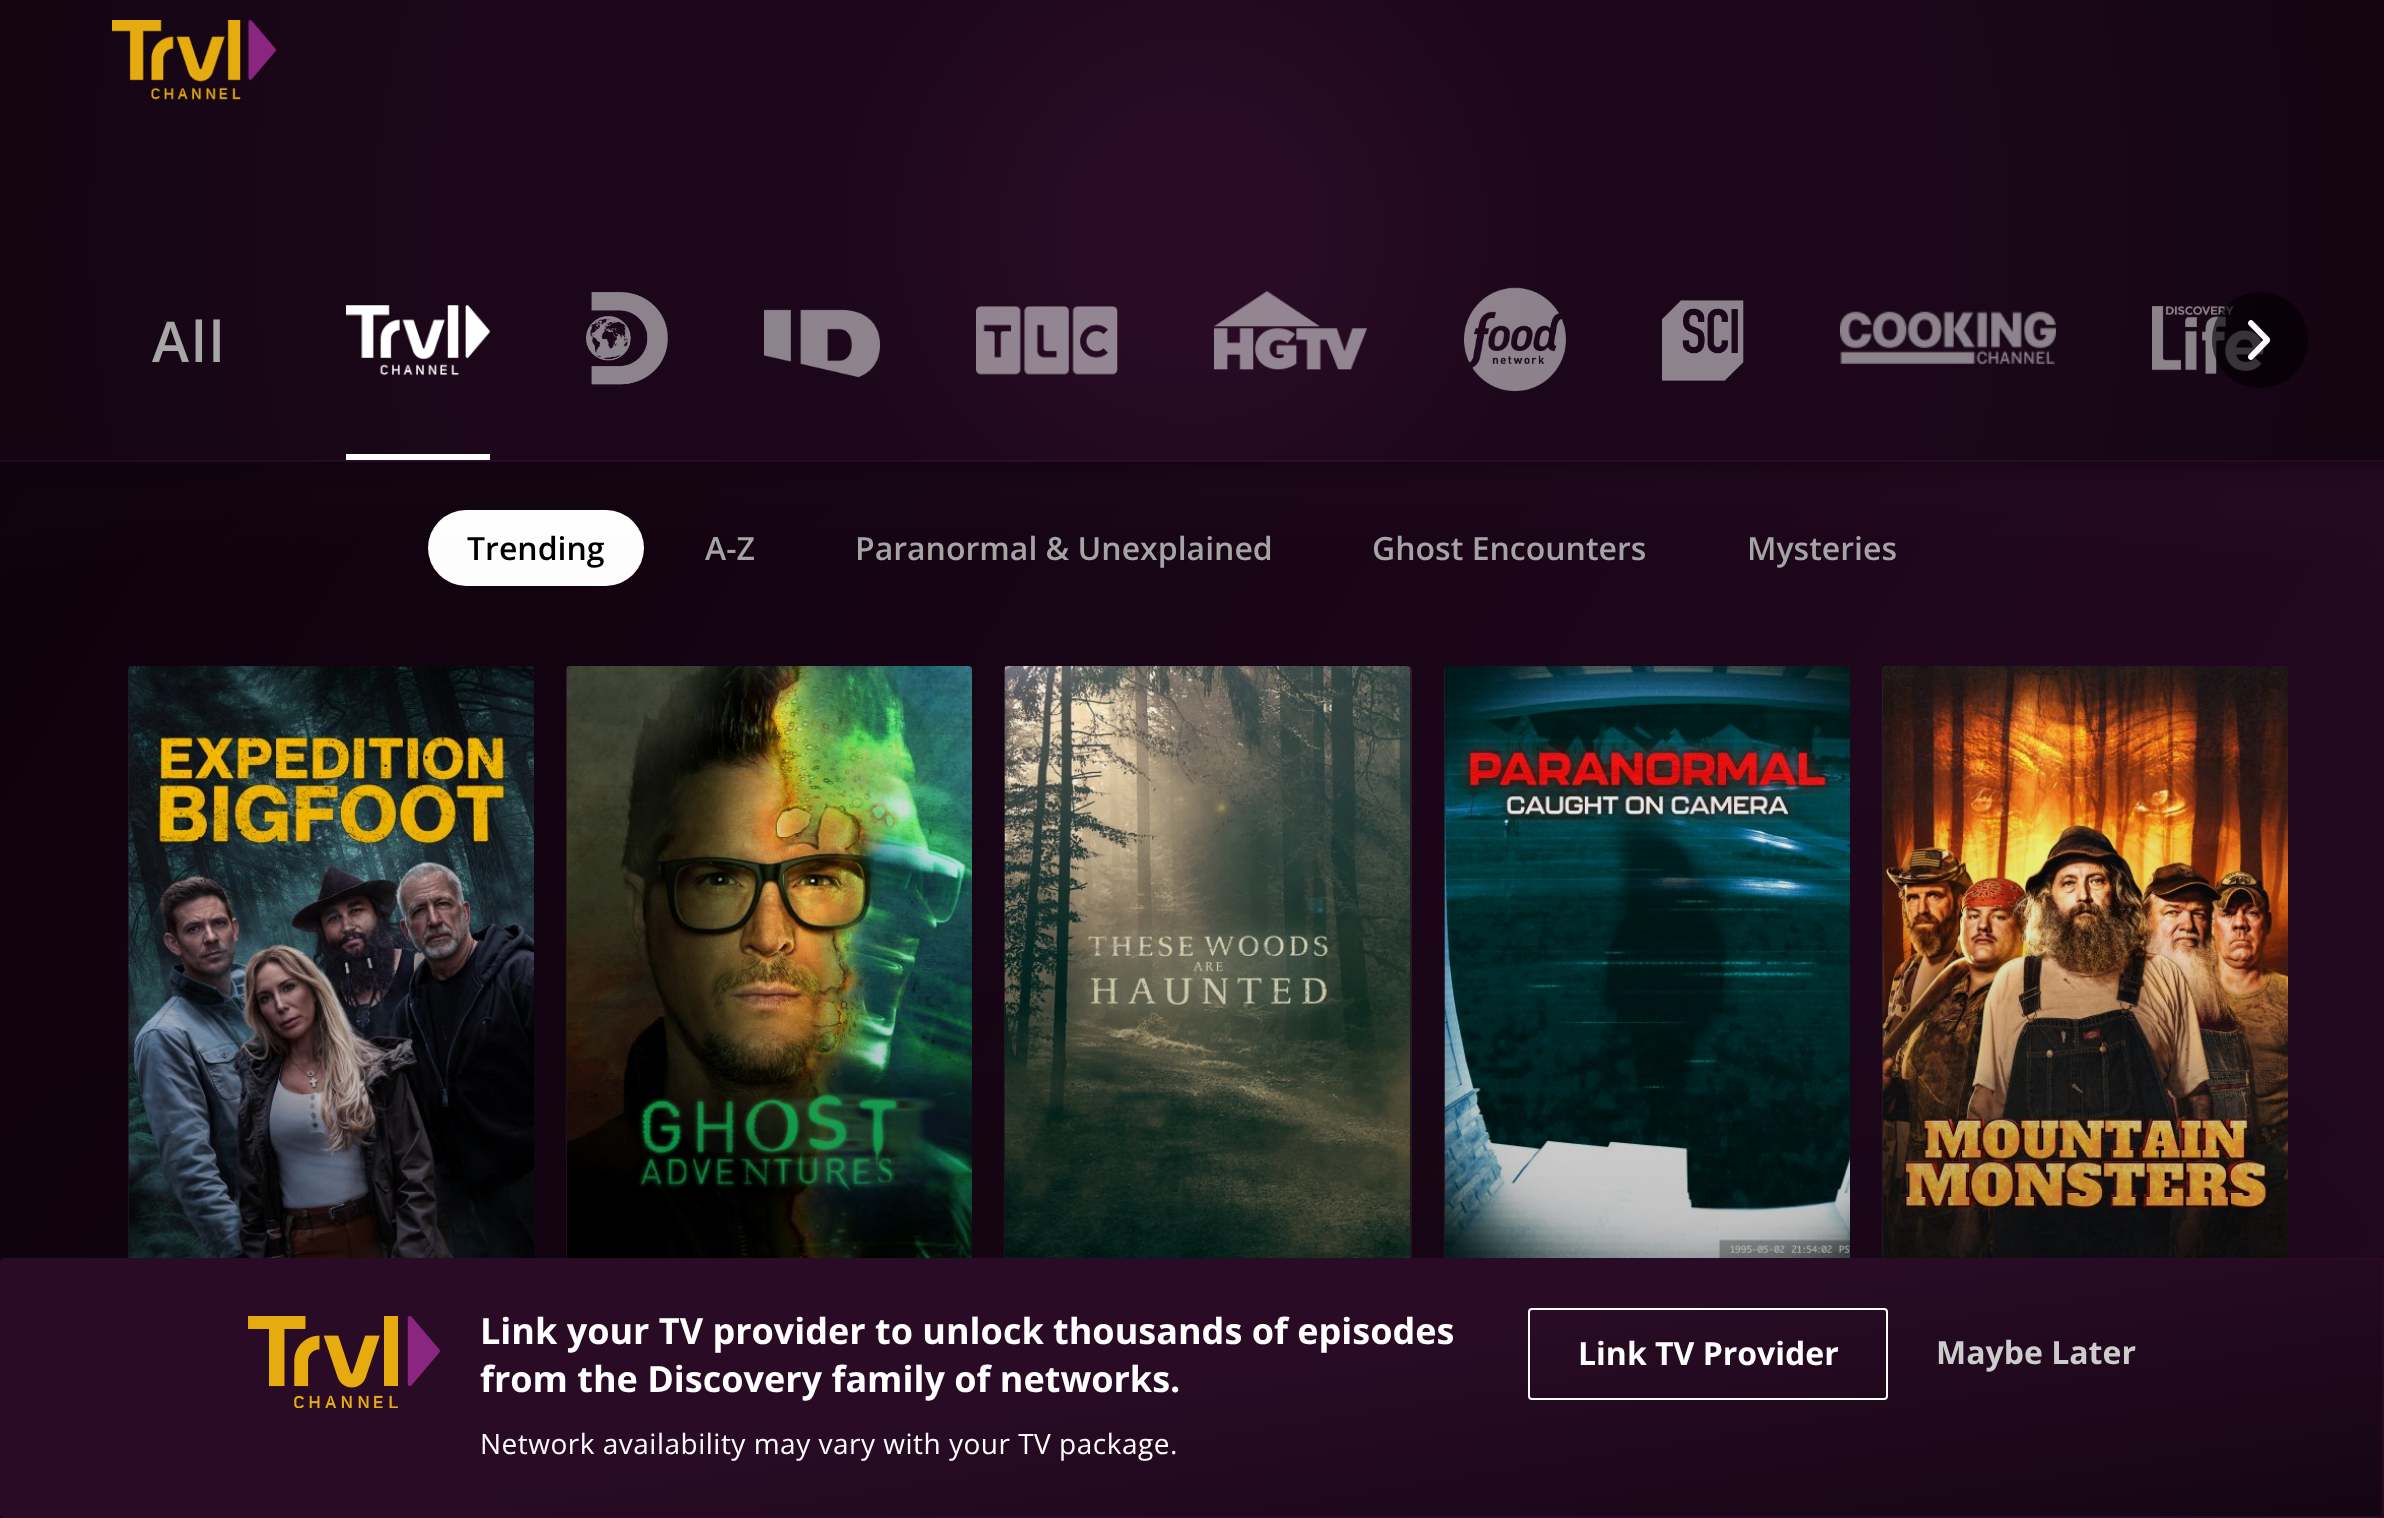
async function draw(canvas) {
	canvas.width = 2384;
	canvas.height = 1518;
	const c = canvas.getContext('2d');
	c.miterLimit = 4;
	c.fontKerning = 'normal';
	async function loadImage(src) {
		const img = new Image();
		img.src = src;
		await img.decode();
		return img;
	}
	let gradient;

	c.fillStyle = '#fff';
	c.fillRect(0, 0, 2384, 1518);
	gradient = c.createLinearGradient(-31, 53, 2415, 1465);
	gradient.addColorStop(0, '#0d030c');
	gradient.addColorStop(1, '#290b25');
	c.fillStyle = gradient;
	c.fillRect(0, 462, 2384, 1056);
	c.fillStyle = '#0d030c99';
	c.filter = 'blur(8px)';
	c.beginPath();
	c.rect(0, 4, 2384, 462);
	c.fill();
	c.filter = 'none';
	gradient = c.createRadialGradient(1192, 230, 0, 1192, 230, 1700);
	gradient.addColorStop(0.06, '#290b25');
	gradient.addColorStop(0.23, '#1b0719');
	gradient.addColorStop(0.43, '#1b0719');
	gradient.addColorStop(1, '#0d030c');
	c.fillStyle = gradient;
	c.fillRect(0, 0, 2384, 460);
	c.drawImage(await loadImage('img1.png'), 112, 20, 164, 80);
	gradient = c.createRadialGradient(1192, 690, 0, 1192, 690, 1700);
	gradient.addColorStop(0.06, '#350e30');
	gradient.addColorStop(0.23, '#290b26');
	gradient.addColorStop(0.43, '#290b26');
	gradient.addColorStop(1, '#1e081b');
	c.fillStyle = gradient;
	c.fillRect(0, 460, 2384, 2);
	c.letterSpacing = '2px';
	c.font = '600 56px Open Sans';
	c.fillStyle = '#a6a6a6';
	c.fillText('All', 152, 362);
	c.save();
	c.beginPath();
	c.rect(346, 220, 144, 240);
	c.clip();
	c.fillStyle = '#fff';
	c.beginPath();
	c.moveTo(148, 22);
	c.lineTo(688, 22);
	c.lineTo(688, 658);
	c.lineTo(148, 658);
	c.closePath();
	c.moveTo(346, 210);
	c.lineTo(490, 210);
	c.bezierCurveTo(491, 210, 492, 211, 492, 212);
	c.lineTo(492, 452);
	c.bezierCurveTo(492, 453, 491, 454, 490, 454);
	c.lineTo(346, 454);
	c.bezierCurveTo(345, 454, 344, 453, 344, 452);
	c.lineTo(344, 212);
	c.bezierCurveTo(344, 211, 345, 210, 346, 210);
	c.closePath();
	c.fill('evenodd');
	c.restore();
	c.drawImage(await loadImage('img2.png'), 346, 305, 144, 71);
	c.drawImage(await loadImage('img3.png'), 586, 292, 82, 93);
	c.drawImage(await loadImage('img4.png'), 764, 309, 116, 69);
	c.drawImage(await loadImage('img5.png'), 976, 306, 142, 69);
	c.drawImage(await loadImage('img6.png'), 1214, 291, 153, 79);
	c.drawImage(await loadImage('img7.png'), 1464, 287, 102, 105);
	c.drawImage(await loadImage('img8.png'), 1662, 300, 82, 81);
	c.drawImage(await loadImage('img9.png'), 1840, 311, 216, 54);
	c.drawImage(await loadImage('img10.png'), 2152, 306, 112, 68);
	c.fillStyle = '#00000099';
	c.beginPath();
	c.arc(2260, 340, 48, 0, 2 * Math.PI);
	c.fill();
	c.drawImage(await loadImage('img11.png'), 2248, 320, 22, 40);
	c.fillStyle = '#fff';
	c.beginPath();
	c.roundRect(428, 510, 216, 76, 38);
	c.fill();
	c.letterSpacing = '0px';
	c.font = '600 32px Open Sans';
	c.fillStyle = '#000';
	c.fillText('Trending', 467, 560);
	c.fillStyle = '#a6a6a6';
	for (const [text, x, y] of [
		['A-Z', 705, 560],
		['Paranormal & Unexplained', 855, 560],
		['Ghost Encounters', 1372, 560],
		['Mysteries', 1747, 560],
	]) {
		c.fillText(text, x, y);
	}
	c.fillStyle = '#e5e5e51a';
	c.beginPath();
	c.roundRect(128, 666, 406, 610, 4);
	c.fill();
	c.drawImage(await loadImage('img12.png'), 128, 666, 406, 592);
	c.beginPath();
	c.roundRect(566, 666, 406, 610, 4);
	c.fill();
	c.drawImage(await loadImage('img13.png'), 566, 666, 406, 592);
	c.beginPath();
	c.roundRect(1004, 666, 408, 610, 4);
	c.fill();
	c.drawImage(await loadImage('img14.png'), 1004, 666, 406, 592);
	c.beginPath();
	c.roundRect(1444, 666, 406, 610, 4);
	c.fill();
	c.drawImage(await loadImage('img15.png'), 1444, 666, 406, 592);
	c.beginPath();
	c.roundRect(1882, 666, 406, 610, 4);
	c.fill();
	c.drawImage(await loadImage('img16.png'), 1882, 666, 406, 592);
	c.fillStyle = '#00000033';
	c.filter = 'blur(300px)';
	c.beginPath();
	c.roundRect(-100, 1158, 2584, 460, 104);
	c.fill();
	c.filter = 'none';
	c.fillStyle = '#0000004d';
	c.filter = 'blur(300px)';
	c.beginPath();
	c.roundRect(-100, 1158, 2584, 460, 104);
	c.fill();
	c.filter = 'none';
	gradient = c.createLinearGradient(1143, 1079, 1259, 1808);
	gradient.addColorStop(0.4, '#290b25');
	gradient.addColorStop(1, '#0d030c');
	c.fillStyle = gradient;
	c.fillRect(2, 1260, 2380, 256);
	c.beginPath();
	c.roundRect(1, 1259, 2382, 258, 3);
	c.strokeStyle = '#290b25';
	c.lineWidth = 2;
	c.stroke();
	c.drawImage(await loadImage('img17.png'), 248, 1316, 192, 92);
	c.font = 'bold 36px Open Sans';
	c.fillStyle = '#fff';
	c.fillText('Link your TV provider to unlock thousands of episodes', 480, 1344);
	c.fillText('from the Discovery family of networks.', 480, 1392);
	c.letterSpacing = '0.5px';
	c.font = '28px Open Sans';
	c.fillText('Network availability may vary with your TV package.', 480, 1454);
	c.beginPath();
	c.roundRect(1529, 1309, 358, 90, 3);
	c.strokeStyle = '#fff';
	c.stroke();
	c.letterSpacing = '0px';
	c.font = 'bold 32px Open Sans';
	c.fillText('Link TV Provider', 1578, 1365);
	c.fillStyle = '#ccc';
	c.fillText('Maybe Later', 1936, 1364);
}

draw(document.querySelector('canvas'));
